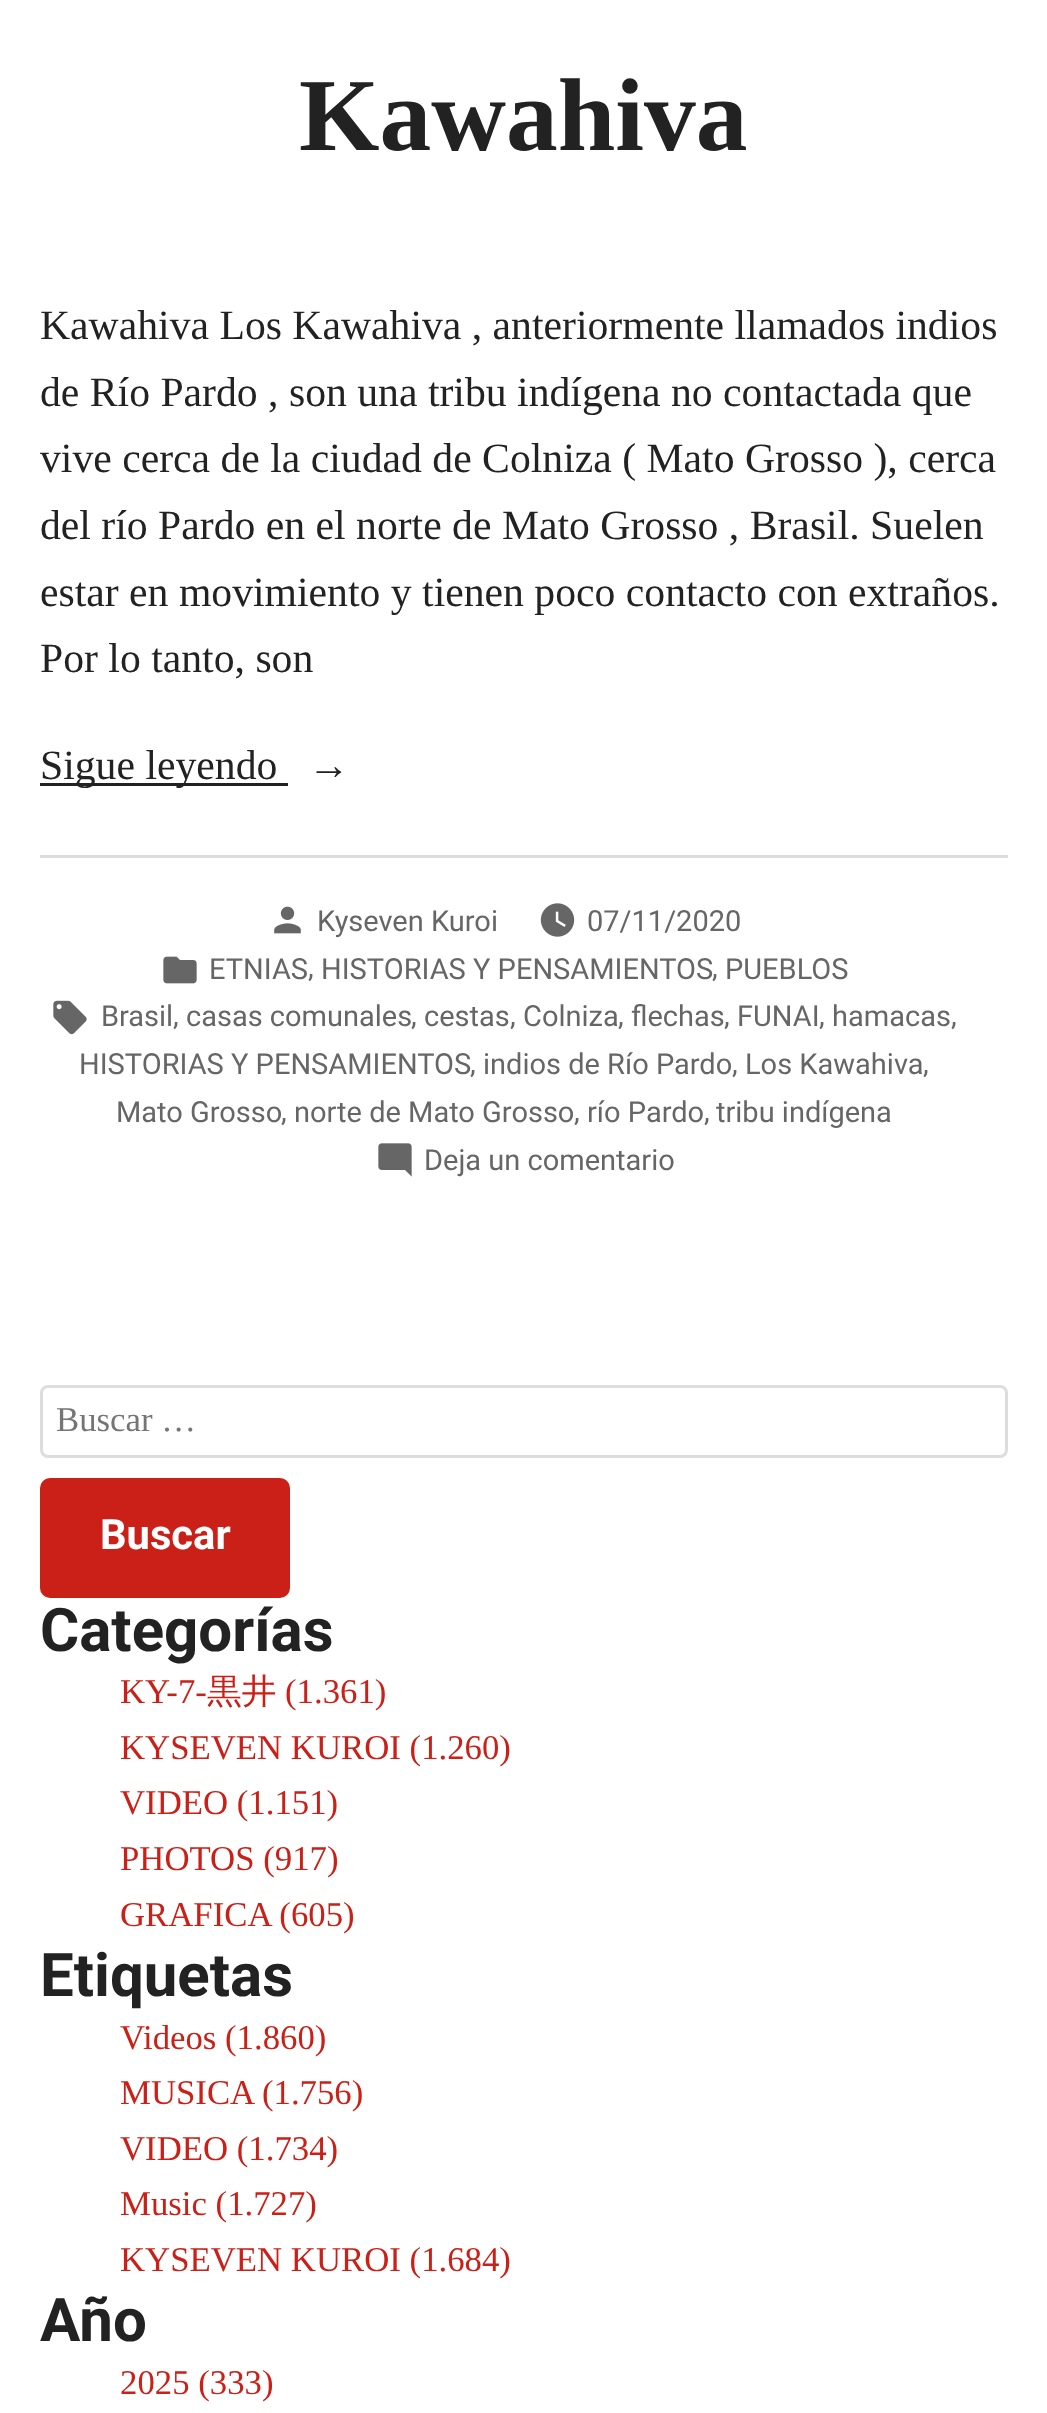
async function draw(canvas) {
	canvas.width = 1047;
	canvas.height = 2413;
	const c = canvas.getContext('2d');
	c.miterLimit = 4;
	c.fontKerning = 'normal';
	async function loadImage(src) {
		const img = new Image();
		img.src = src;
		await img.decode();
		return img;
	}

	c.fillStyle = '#fff';
	c.fillRect(0, 0, 1047, 2413);
	c.font = 'bold 103.5px Liberation Serif';
	c.fillStyle = '#222';
	c.fillText('Kawahiva', 299, 150);
	c.font = '41.7px Liberation Serif';
	for (const [text, x, y] of [
		['Kawahiva Los Kawahiva , anteriormente llamados indios', 40, 339],
		['de Río Pardo , son una tribu indígena no contactada que', 40, 406],
		['vive cerca de la ciudad de Colniza ( Mato Grosso ), cerca', 40, 472],
		['del río Pardo en el norte de Mato Grosso , Brasil. Suelen', 40, 539],
		['estar en movimiento y tienen poco contacto con extraños.', 40, 606],
		['Por lo tanto, son', 40, 672],
	]) {
		c.fillText(text, x, y);
	}
	c.fillRect(40, 783, 248, 3);
	c.fillText('Sigue leyendo', 40, 779);
	c.fillText('→', 308, 779);
	c.fillStyle = '#ddd';
	c.fillRect(40, 855, 968, 3);
	c.drawImage(await loadImage('img1.png'), 274, 906, 27, 28);
	c.font = '29px Roboto';
	c.fillStyle = '#666';
	c.fillText('Kyseven Kuroi', 317, 931);
	c.drawImage(await loadImage('img2.png'), 540, 903, 35, 34);
	c.fillText('07/11/2020', 587, 931);
	c.drawImage(await loadImage('img3.png'), 163, 956, 34, 28);
	for (const [text, x, y] of [
		['ETNIAS', 209, 979],
		[',', 308, 977],
		['HISTORIAS Y PENSAMIENTOS', 321, 979],
		[',', 712, 977],
		['PUEBLOS', 725, 979],
	]) {
		c.fillText(text, x, y);
	}
	c.drawImage(await loadImage('img4.png'), 53, 1000, 34, 35);
	for (const [text, x, y] of [
		['Brasil', 101, 1026],
		[',', 173, 1025],
		['casas comunales', 186, 1026],
		[',', 411, 1025],
		['cestas', 424, 1026],
		[',', 510, 1025],
		['Colniza', 523, 1026],
		[',', 618, 1025],
		['flechas', 631, 1026],
		[',', 724, 1025],
		['FUNAI', 737, 1026],
		[',', 819, 1025],
		['hamacas', 832, 1026],
		[',', 951, 1025],
		['HISTORIAS Y PENSAMIENTOS', 79, 1074],
		[',', 470, 1073],
		['indios de Río Pardo', 483, 1074],
		[',', 732, 1073],
		['Los Kawahiva', 745, 1074],
		[',', 923, 1073],
		['Mato Grosso', 116, 1122],
		[',', 281, 1121],
		['norte de Mato Grosso', 294, 1122],
		[',', 574, 1121],
		['río Pardo', 587, 1122],
		[',', 704, 1121],
		['tribu indígena', 716, 1122],
	]) {
		c.fillText(text, x, y);
	}
	c.drawImage(await loadImage('img5.png'), 378, 1143, 34, 34);
	c.fillText('Deja un comentario', 424, 1170);
	c.beginPath();
	c.roundRect(41.5, 1386.5, 965, 70, 6.5);
	c.strokeStyle = '#ddd';
	c.lineWidth = 3;
	c.stroke();
	c.font = '34.75px Liberation Serif';
	c.fillStyle = '#757575';
	c.fillText('Buscar …', 56, 1431);
	c.fillStyle = '#ca2017';
	c.beginPath();
	c.roundRect(40, 1478, 250, 120, 10);
	c.fill();
	c.font = 'bold 41.7px Roboto';
	c.fillStyle = '#fff';
	c.fillText('Buscar', 100, 1549);
	c.font = 'bold 60px Roboto';
	c.fillStyle = '#222';
	c.fillText('Categorías', 40, 1651);
	c.font = '34.75px Liberation Serif';
	c.fillStyle = '#ca2017';
	c.fillText('KY-7-', 120, 1703);
	c.font = '500 34.75px WenQuanYi Zen Hei';
	c.fillText('黒井', 207, 1703);
	c.font = '34.75px Liberation Serif';
	for (const [text, x, y] of [
		['(1.361)', 285, 1703],
		['KYSEVEN KUROI (1.260)', 120, 1759],
		['VIDEO (1.151)', 120, 1814],
		['PHOTOS (917)', 120, 1870],
		['GRAFICA (605)', 120, 1926],
	]) {
		c.fillText(text, x, y);
	}
	c.font = 'bold 60px Roboto';
	c.fillStyle = '#222';
	c.fillText('Etiquetas', 40, 1996);
	c.font = '34.75px Liberation Serif';
	c.fillStyle = '#ca2017';
	for (const [text, x, y] of [
		['Videos (1.860)', 120, 2049],
		['MUSICA (1.756)', 120, 2104],
		['VIDEO (1.734)', 120, 2160],
		['Music (1.727)', 120, 2215],
		['KYSEVEN KUROI (1.684)', 120, 2271],
	]) {
		c.fillText(text, x, y);
	}
	c.font = 'bold 60px Roboto';
	c.fillStyle = '#222';
	c.fillText('Año', 40, 2341);
	c.font = '34.75px Liberation Serif';
	c.fillStyle = '#ca2017';
	c.fillText('2025 (333)', 120, 2394);
}

draw(document.querySelector('canvas'));
